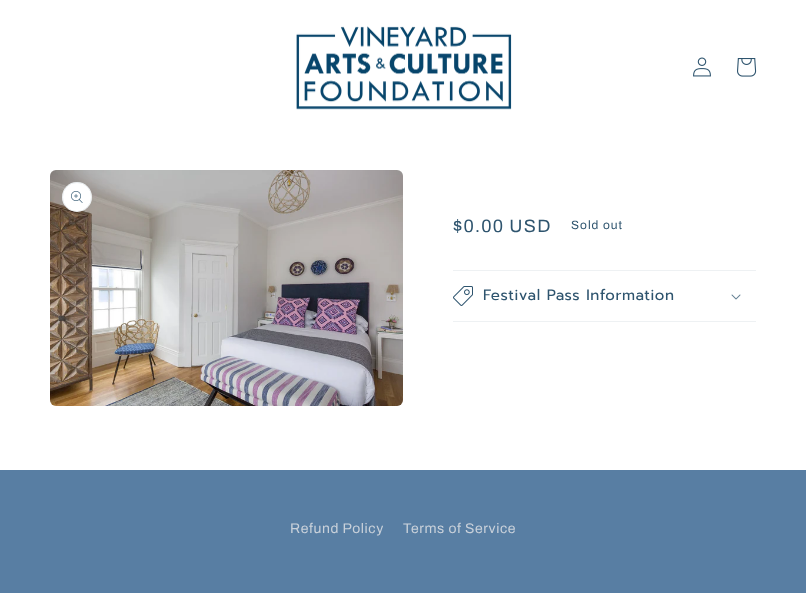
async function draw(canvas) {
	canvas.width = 806;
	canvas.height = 593;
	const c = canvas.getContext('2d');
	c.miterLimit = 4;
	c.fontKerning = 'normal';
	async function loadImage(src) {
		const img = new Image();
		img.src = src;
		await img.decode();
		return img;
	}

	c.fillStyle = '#fff';
	c.fillRect(0, 0, 806, 593);
	c.drawImage(await loadImage('img1.png'), 296, 26, 216, 84);
	c.drawImage(await loadImage('img2.png'), 693, 57, 18, 20);
	c.drawImage(await loadImage('img3.png'), 737, 58, 20, 19);
	c.drawImage(await loadImage('img4.png'), 50, 170, 353, 236);
	c.beginPath();
	c.arc(77, 197, 15, 0, 2 * Math.PI);
	c.fill();
	c.beginPath();
	c.arc(77, 197, 14.5, 0, 2 * Math.PI);
	c.strokeStyle = '#2e546e1a';
	c.stroke();
	c.drawImage(await loadImage('img5.png'), 71, 191, 12, 12);
	c.letterSpacing = '1.25px';
	c.font = '18px Archivo';
	c.fillStyle = '#2e546e';
	c.fillText('$0.00 USD', 453, 232);
	c.letterSpacing = '1px';
	c.font = '12px Archivo';
	c.fillText('Sold out', 571, 229);
	c.fillStyle = '#eef1f3';
	c.fillRect(453, 270, 303, 1);
	c.fillRect(453, 321, 303, 1);
	c.drawImage(await loadImage('img6.png'), 453, 286, 20, 20);
	c.letterSpacing = '0.6px';
	c.font = '15px Prompt';
	c.fillStyle = '#2e546e';
	c.fillText('Festival Pass Information', 483, 300);
	c.drawImage(await loadImage('img7.png'), 731, 294, 10, 6);
	c.fillStyle = '#587ea3';
	c.fillRect(0, 470, 806, 123);
	c.font = '14px Archivo';
	c.fillStyle = '#c9d1da';
	c.fillText('Refund Policy', 290, 533);
	c.fillText('Terms of Service', 403, 533);
}

draw(document.querySelector('canvas'));
